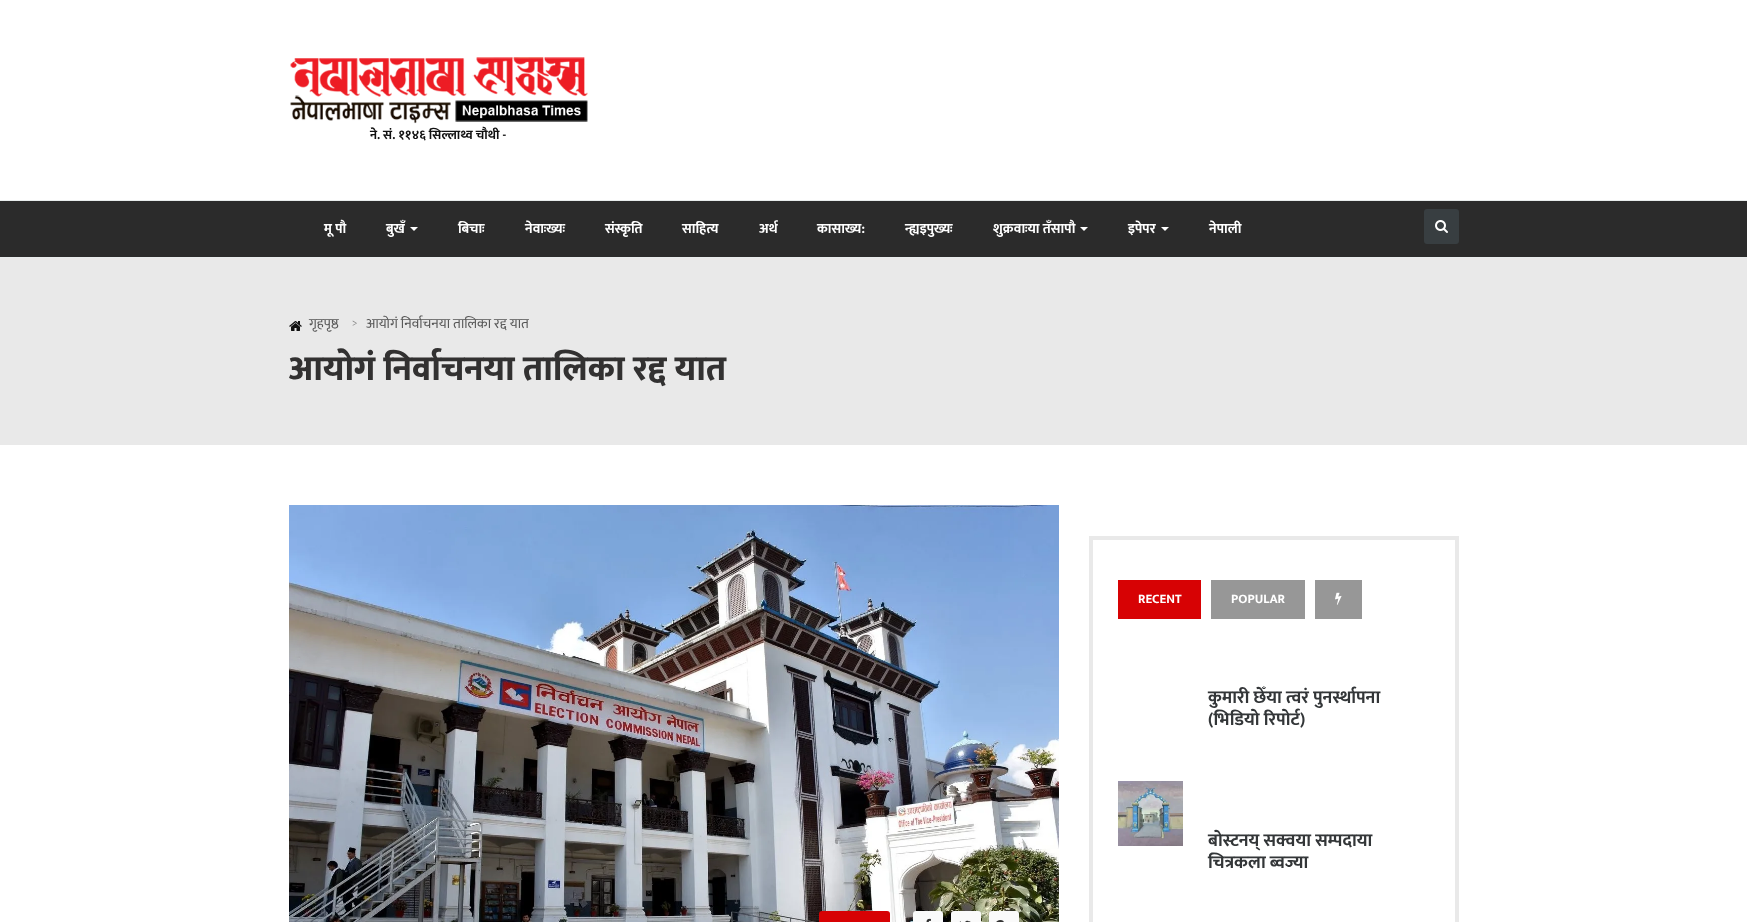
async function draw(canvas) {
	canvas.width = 1747;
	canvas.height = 922;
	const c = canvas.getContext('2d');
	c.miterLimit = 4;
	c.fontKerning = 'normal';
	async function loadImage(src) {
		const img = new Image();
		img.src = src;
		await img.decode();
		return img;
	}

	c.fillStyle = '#fff';
	c.fillRect(0, 0, 1747, 922);
	c.drawImage(await loadImage('img1.png'), 290, 57, 298, 67);
	c.font = 'bold 13px Ek Mukta';
	c.fillStyle = '#111';
	c.fillText('ने. सं. ११४६ सिल्लाथ्व चौथी -', 370, 139);
	for (const [x, y, w, h, color] of [
		[0, 201, 1747, 56, '#2b2b2b'],
		[0, 200, 1747, 1, '#e8ecec'],
		[0, 257, 1747, 1, '#e8ecec'],
	]) {
		c.fillStyle = color;
		c.fillRect(x, y, w, h);
	}
	c.font = 'bold 14px Ek Mukta';
	c.fillStyle = '#fff';
	c.fillText('मू पौ', 324, 233);
	c.fillText('बुखँ', 386, 233);
	c.beginPath();
	c.moveTo(410, 227);
	c.lineTo(418, 227);
	c.lineTo(414, 231);
	c.closePath();
	c.fill();
	for (const [text, x, y] of [
		['बिचाः', 458, 233],
		['नेवाःख्यः', 525, 233],
		['संस्कृति', 605, 233],
		['साहित्य', 682, 233],
		['अर्थ', 759, 233],
		['कासाख्य:', 817, 233],
		['न्ह्यइपुख्यः', 905, 233],
		['शुक्रवाःया तँसापौ', 993, 233],
	]) {
		c.fillText(text, x, y);
	}
	c.beginPath();
	c.moveTo(1080, 227);
	c.lineTo(1088, 227);
	c.lineTo(1084, 231);
	c.closePath();
	c.fill();
	c.fillText('इपेपर', 1128, 233);
	c.beginPath();
	c.moveTo(1161, 227);
	c.lineTo(1169, 227);
	c.lineTo(1165, 231);
	c.closePath();
	c.fill();
	c.fillText('नेपाली', 1209, 233);
	c.fillStyle = '#383e41';
	c.beginPath();
	c.roundRect(1424, 209, 35, 35, 3);
	c.fill();
	c.drawImage(await loadImage('img2.png'), 1435, 220, 13, 13);
	c.fillStyle = '#e9e9e9';
	c.fillRect(0, 258, 1747, 187);
	c.drawImage(await loadImage('img3.png'), 289, 321, 13, 10);
	c.font = '14px Mukta';
	c.fillStyle = '#555';
	c.fillText('गृहपृष्ठ', 309, 328);
	c.font = '11px Mukta';
	c.fillStyle = '#888';
	c.fillText('>', 352, 326);
	c.font = '14px Mukta';
	c.fillStyle = '#555';
	c.fillText('आयोगं निर्वाचनया तालिका रद्द यात', 366, 328);
	c.font = '800 35px Mukta';
	c.fillStyle = '#323131';
	c.fillText('आयोगं निर्वाचनया तालिका रद्द यात', 289, 380);
	c.drawImage(await loadImage('img4.png'), 289, 505, 770, 417);
	c.fillStyle = '#d70204';
	c.beginPath();
	c.roundRect(819, 911, 71, 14, 3);
	c.fill();
	c.fillStyle = '#fafafa';
	c.beginPath();
	c.roundRect(913, 911, 30, 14, 3);
	c.fill();
	c.drawImage(await loadImage('img5.png'), 926, 918, 5, 4);
	c.beginPath();
	c.roundRect(951, 911, 30, 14, 3);
	c.fill();
	c.drawImage(await loadImage('img6.png'), 959, 920, 12, 2);
	c.beginPath();
	c.roundRect(989, 911, 30, 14, 3);
	c.fill();
	c.drawImage(await loadImage('img7.png'), 996, 920, 8, 2);
	c.strokeStyle = '#e9e9e9';
	c.lineWidth = 4;
	c.strokeRect(1091, 538, 366, 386);
	c.fillStyle = '#d70204';
	c.fillRect(1118, 580, 83, 39);
	c.font = 'bold 13px Mukta';
	c.fillStyle = '#fff';
	c.fillText('RECENT', 1138, 603);
	c.fillStyle = '#979797';
	c.fillRect(1211, 580, 94, 39);
	c.fillStyle = '#fff';
	c.fillText('POPULAR', 1231, 603);
	c.fillStyle = '#979797';
	c.fillRect(1315, 580, 47, 39);
	c.drawImage(await loadImage('img8.png'), 1335, 592, 7, 13);
	c.font = 'bold 18px Mukta';
	c.fillStyle = '#333638';
	c.fillText('कुमारी छेँया त्वरं पुनर्स्थापना', 1208, 703);
	c.fillText('(भिडियाे रिपाेर्ट)', 1208, 725);
	c.drawImage(await loadImage('img9.png'), 1118, 781, 65, 65);
	c.fillText('बोस्टनय् सक्वया सम्पदाया', 1208, 846);
	c.fillText('चित्रकला ब्वज्या', 1208, 868);
}

draw(document.querySelector('canvas'));
